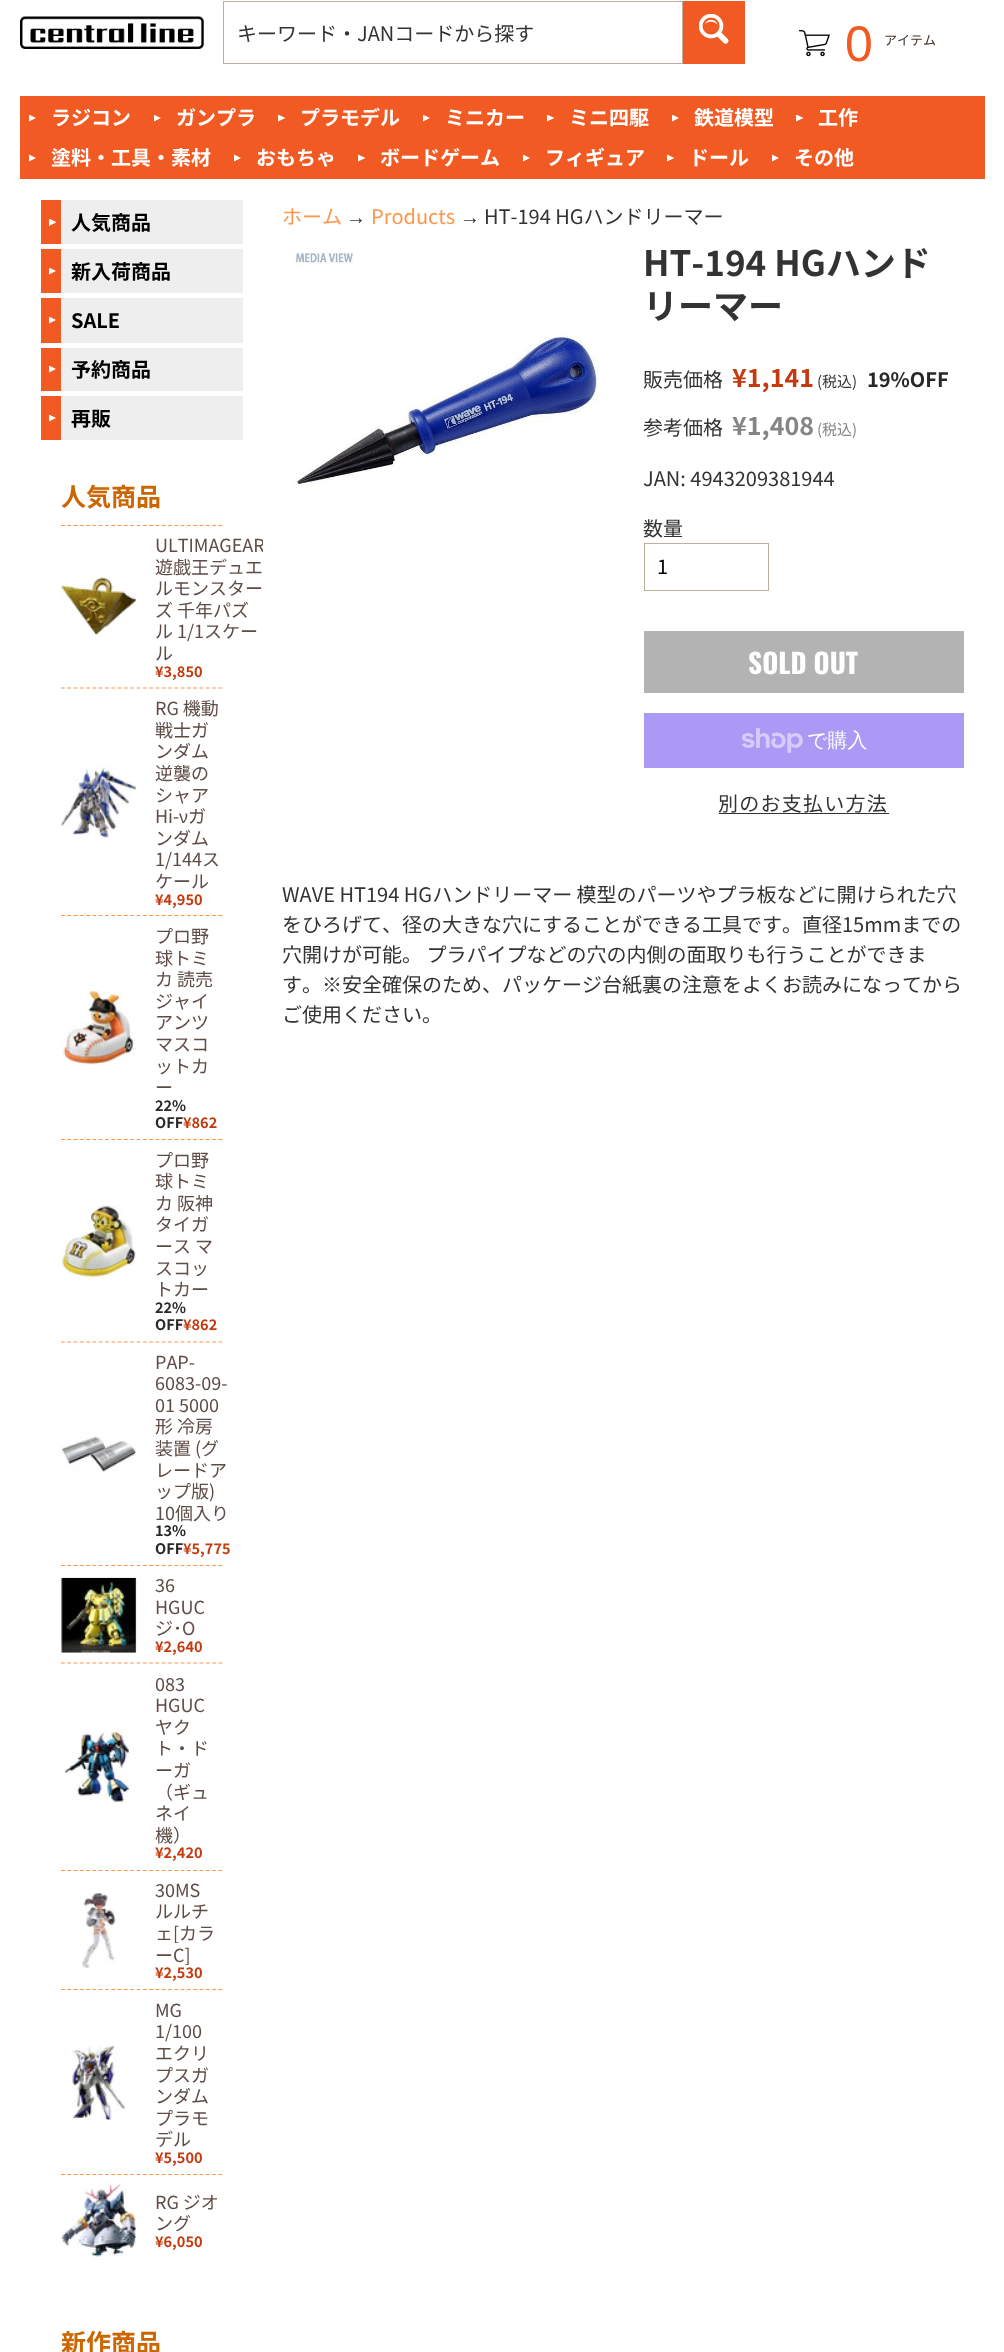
async function draw(canvas) {
	canvas.width = 1004;
	canvas.height = 2352;
	const c = canvas.getContext('2d');
	c.miterLimit = 4;
	c.fontKerning = 'none';
	async function loadImage(src) {
		const img = new Image();
		img.src = src;
		await img.decode();
		return img;
	}

	c.fillStyle = '#fff';
	c.fillRect(0, 0, 1004, 2352);
	c.drawImage(await loadImage('img1.png'), 20, 16, 184, 33);
	c.strokeStyle = '#bdaf9b';
	c.strokeRect(223.5, 1.5, 459, 62);
	c.font = '20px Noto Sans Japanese';
	c.fillStyle = '#333';
	c.fillText('キーワード・JANコードから探す', 237, 41);
	c.fillStyle = '#f15a22';
	c.fillRect(683, 1, 62, 63);
	c.drawImage(await loadImage('img2.png'), 699, 14, 30, 30);
	c.drawImage(await loadImage('img3.png'), 799, 30, 31, 27);
	c.font = '50px Liberation Sans';
	c.fillText('0', 845, 61);
	c.font = '13px Noto Sans Japanese';
	c.fillStyle = '#403125';
	c.fillText('アイテム', 884, 45);
	c.fillStyle = '#f15a22';
	c.fillRect(20, 96, 965, 83);
	c.fillStyle = '#fff';
	c.beginPath();
	c.moveTo(29, 115);
	c.lineTo(30, 115);
	c.lineTo(36, 118);
	c.lineTo(29, 121.5);
	c.closePath();
	c.fill();
	c.font = 'bold 20px Noto Sans Japanese';
	c.fillText('ラジコン', 51, 125);
	c.beginPath();
	c.moveTo(154, 115);
	c.lineTo(154, 121.5);
	c.lineTo(161, 118);
	c.lineTo(154.5, 115);
	c.closePath();
	c.fill();
	c.fillText('ガンプラ', 176, 125);
	c.beginPath();
	c.moveTo(278, 115);
	c.lineTo(278, 121.5);
	c.lineTo(285.5, 118);
	c.lineTo(279, 115);
	c.closePath();
	c.fill();
	c.fillText('プラモデル', 300, 125);
	c.beginPath();
	c.moveTo(423, 115);
	c.lineTo(423, 121.5);
	c.lineTo(430, 118);
	c.lineTo(423.5, 115);
	c.closePath();
	c.fill();
	c.fillText('ミニカー', 445, 125);
	c.beginPath();
	c.moveTo(547, 115);
	c.lineTo(547, 121.5);
	c.lineTo(554.5, 118);
	c.lineTo(548, 115);
	c.closePath();
	c.fill();
	c.fillText('ミニ四駆', 569, 125);
	c.beginPath();
	c.moveTo(672, 115);
	c.lineTo(672, 121.5);
	c.lineTo(679, 118);
	c.lineTo(673, 115);
	c.closePath();
	c.fill();
	c.fillText('鉄道模型', 694, 125);
	c.beginPath();
	c.moveTo(796, 115);
	c.lineTo(796, 121.5);
	c.lineTo(803.5, 118);
	c.lineTo(797.5, 115);
	c.closePath();
	c.fill();
	c.fillText('工作', 818, 125);
	c.beginPath();
	c.moveTo(29, 161.5);
	c.lineTo(29, 154.5);
	c.lineTo(36, 158);
	c.closePath();
	c.fill();
	c.fillText('塗料・工具・素材', 51, 165);
	c.beginPath();
	c.moveTo(241, 158);
	c.lineTo(234, 161.5);
	c.lineTo(234, 154.5);
	c.closePath();
	c.fill();
	c.fillText('おもちゃ', 256, 165);
	c.beginPath();
	c.moveTo(365.5, 158);
	c.lineTo(358, 161.5);
	c.lineTo(358, 154.5);
	c.closePath();
	c.fill();
	c.fillText('ボードゲーム', 380, 165);
	c.beginPath();
	c.moveTo(530, 158);
	c.lineTo(523, 161.5);
	c.lineTo(523, 154.5);
	c.closePath();
	c.fill();
	c.fillText('フィギュア', 545, 165);
	c.beginPath();
	c.moveTo(674.5, 158);
	c.lineTo(667, 161.5);
	c.lineTo(667, 154.5);
	c.closePath();
	c.fill();
	c.fillText('ドール', 689, 165);
	c.beginPath();
	c.moveTo(779, 158);
	c.lineTo(772, 161.5);
	c.lineTo(772, 154.5);
	c.closePath();
	c.fill();
	c.fillText('その他', 794, 165);
	c.fillStyle = '#eee';
	c.fillRect(61, 200, 182, 44);
	c.fillStyle = '#f15a22';
	c.fillRect(41, 200, 20, 44);
	c.fillStyle = '#000';
	c.fillText('人気商品', 71, 230);
	c.fillStyle = '#fff';
	c.beginPath();
	c.moveTo(49, 219);
	c.lineTo(50, 219);
	c.lineTo(56, 222);
	c.lineTo(56, 222.5);
	c.lineTo(49, 226);
	c.closePath();
	c.fill();
	c.fillStyle = '#eee';
	c.fillRect(61, 249, 182, 44);
	c.fillStyle = '#f15a22';
	c.fillRect(41, 249, 20, 44);
	c.fillStyle = '#000';
	c.fillText('新入荷商品', 71, 279);
	c.fillStyle = '#fff';
	c.beginPath();
	c.moveTo(49, 268);
	c.lineTo(50, 268);
	c.lineTo(56, 271);
	c.lineTo(49, 274.5);
	c.closePath();
	c.fill();
	c.fillStyle = '#eee';
	c.fillRect(61, 298, 182, 45);
	c.fillStyle = '#f15a22';
	c.fillRect(41, 298, 20, 45);
	c.fillStyle = '#000';
	c.fillText('SALE', 71, 328);
	c.fillStyle = '#fff';
	c.beginPath();
	c.moveTo(49, 317);
	c.lineTo(50, 317);
	c.lineTo(56, 320);
	c.lineTo(49, 323.5);
	c.closePath();
	c.fill();
	c.fillStyle = '#eee';
	c.fillRect(61, 348, 182, 43);
	c.fillStyle = '#f15a22';
	c.fillRect(41, 348, 20, 43);
	c.fillStyle = '#000';
	c.fillText('予約商品', 71, 377);
	c.fillStyle = '#fff';
	c.beginPath();
	c.moveTo(49, 366);
	c.lineTo(50, 366);
	c.lineTo(56, 369);
	c.lineTo(49, 372.5);
	c.closePath();
	c.fill();
	c.fillStyle = '#eee';
	c.fillRect(61, 396, 182, 44);
	c.fillStyle = '#f15a22';
	c.fillRect(41, 396, 20, 44);
	c.fillStyle = '#000';
	c.fillText('再販', 71, 426);
	c.fillStyle = '#fff';
	c.beginPath();
	c.moveTo(49, 415);
	c.lineTo(50, 415);
	c.lineTo(56, 418);
	c.lineTo(49, 421.5);
	c.closePath();
	c.fill();
	c.font = 'bold 25px Noto Sans Japanese';
	c.fillStyle = '#c60';
	c.fillText('人気商品', 61, 506);
	c.beginPath();
	c.moveTo(61, 525.5);
	c.lineTo(222.5, 525.5);
	c.strokeStyle = '#ff944d';
	c.lineWidth = 1.2;
	c.setLineDash([3.75, 2.55]);
	c.stroke();
	c.drawImage(await loadImage('img4.png'), 61, 577, 76, 60);
	c.save();
	c.beginPath();
	c.rect(21, 180, 242, 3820);
	c.clip();
	c.font = '18px Noto Sans Japanese';
	c.fillStyle = '#5e4c46';
	c.fillText('ULTIMAGEAR', 155, 552);
	c.restore();
	c.font = '18px Noto Sans Japanese';
	c.fillStyle = '#5e4c46';
	for (const [text, x, y] of [
		['遊戯王デュエ', 155, 574],
		['ルモンスター', 155, 595],
		['ズ 千年パズ', 155, 617],
		['ル 1/1スケー', 155, 638],
		['ル', 155, 660],
	]) {
		c.fillText(text, x, y);
	}
	c.font = 'bold 14.5px Noto Sans Japanese';
	c.fillStyle = '#c33a0e';
	c.fillText('¥3,850', 155, 677);
	c.beginPath();
	c.moveTo(61, 688);
	c.lineTo(222.5, 688);
	c.stroke();
	c.drawImage(await loadImage('img5.png'), 61, 766, 76, 73);
	c.font = '18px Noto Sans Japanese';
	c.fillStyle = '#5e4c46';
	for (const [text, x, y] of [
		['RG 機動', 155, 715],
		['戦士ガ', 155, 737],
		['ンダム', 155, 758],
		['逆襲の', 155, 780],
		['シャア', 155, 802],
		['Hi-', 155, 823],
	]) {
		c.fillText(text, x, y);
	}
	c.font = '18px Liberation Sans';
	c.fillText('ν', 179, 823);
	c.font = '18px Noto Sans Japanese';
	for (const [text, x, y] of [
		['ガ', 188, 823],
		['ンダム', 155, 845],
		['1/144ス', 155, 866],
		['ケール', 155, 888],
	]) {
		c.fillText(text, x, y);
	}
	c.font = 'bold 14.5px Noto Sans Japanese';
	c.fillStyle = '#c33a0e';
	c.fillText('¥4,950', 155, 905);
	c.beginPath();
	c.moveTo(61, 915.5);
	c.lineTo(222.5, 915.5);
	c.stroke();
	c.drawImage(await loadImage('img6.png'), 61, 990, 75, 75);
	c.font = '18px Noto Sans Japanese';
	c.fillStyle = '#5e4c46';
	for (const [text, x, y] of [
		['プロ野', 155, 943],
		['球トミ', 155, 965],
		['カ 読売', 155, 986],
		['ジャイ', 155, 1008],
		['アンツ', 155, 1029],
		['マスコ', 155, 1051],
		['ットカ', 155, 1073],
		['ー', 155, 1094],
	]) {
		c.fillText(text, x, y);
	}
	c.font = 'bold 14.5px Noto Sans Japanese';
	c.fillStyle = '#282828';
	c.fillText('22%', 155, 1111);
	c.fillText('OFF', 155, 1128);
	c.fillStyle = '#c33a0e';
	c.fillText('¥862', 183, 1128);
	c.beginPath();
	c.moveTo(61, 1139.5);
	c.lineTo(222.5, 1139.5);
	c.stroke();
	c.drawImage(await loadImage('img7.png'), 61, 1204, 75, 75);
	c.font = '18px Noto Sans Japanese';
	c.fillStyle = '#5e4c46';
	for (const [text, x, y] of [
		['プロ野', 155, 1167],
		['球トミ', 155, 1188],
		['カ 阪神', 155, 1210],
		['タイガ', 155, 1231],
		['ース マ', 155, 1253],
		['スコッ', 155, 1275],
		['トカー', 155, 1296],
	]) {
		c.fillText(text, x, y);
	}
	c.font = 'bold 14.5px Noto Sans Japanese';
	c.fillStyle = '#282828';
	c.fillText('22%', 155, 1313);
	c.fillText('OFF', 155, 1330);
	c.fillStyle = '#c33a0e';
	c.fillText('¥862', 183, 1330);
	c.beginPath();
	c.moveTo(61, 1342);
	c.lineTo(222.5, 1342);
	c.stroke();
	c.drawImage(await loadImage('img8.png'), 61, 1436, 75, 36);
	c.font = '18px Noto Sans Japanese';
	c.fillStyle = '#5e4c46';
	for (const [text, x, y] of [
		['PAP-', 155, 1369],
		['6083-09-', 155, 1390],
		['01 5000', 155, 1412],
		['形 冷房', 155, 1433],
		['装置 (グ', 155, 1455],
		['レードア', 155, 1477],
		['ップ版)', 155, 1498],
		['10個入り', 155, 1520],
	]) {
		c.fillText(text, x, y);
	}
	c.font = 'bold 14.5px Noto Sans Japanese';
	c.fillStyle = '#282828';
	c.fillText('13%', 155, 1536);
	c.fillText('OFF', 155, 1554);
	c.fillStyle = '#c33a0e';
	c.fillText('¥5,775', 183, 1554);
	c.beginPath();
	c.moveTo(61, 1565.5);
	c.lineTo(222.5, 1565.5);
	c.stroke();
	c.drawImage(await loadImage('img9.png'), 61, 1577, 76, 76);
	c.font = '18px Noto Sans Japanese';
	c.fillStyle = '#5e4c46';
	for (const [text, x, y] of [
		['36', 155, 1592],
		['HGUC', 155, 1614],
		['ジ･O', 155, 1635],
	]) {
		c.fillText(text, x, y);
	}
	c.font = 'bold 14.5px Noto Sans Japanese';
	c.fillStyle = '#c33a0e';
	c.fillText('¥2,640', 155, 1652);
	c.beginPath();
	c.moveTo(61, 1663);
	c.lineTo(222.5, 1663);
	c.stroke();
	c.drawImage(await loadImage('img10.png'), 64, 1729, 67, 75);
	c.font = '18px Noto Sans Japanese';
	c.fillStyle = '#5e4c46';
	for (const [text, x, y] of [
		['083', 155, 1691],
		['HGUC', 155, 1712],
		['ヤク', 155, 1734],
		['ト・ド', 155, 1755],
		['ーガ', 155, 1777],
		['（ギュ', 155, 1799],
		['ネイ', 155, 1820],
		['機）', 155, 1842],
	]) {
		c.fillText(text, x, y);
	}
	c.font = 'bold 14.5px Noto Sans Japanese';
	c.fillStyle = '#c33a0e';
	c.fillText('¥2,420', 155, 1858);
	c.beginPath();
	c.moveTo(61, 1870.5);
	c.lineTo(222.5, 1870.5);
	c.stroke();
	c.drawImage(await loadImage('img11.png'), 82, 1892, 34, 76);
	c.font = '18px Noto Sans Japanese';
	c.fillStyle = '#5e4c46';
	for (const [text, x, y] of [
		['30MS', 155, 1897],
		['ルルチ', 155, 1918],
		['ェ[カラ', 155, 1940],
		['ーC]', 155, 1962],
	]) {
		c.fillText(text, x, y);
	}
	c.font = 'bold 14.5px Noto Sans Japanese';
	c.fillStyle = '#c33a0e';
	c.fillText('¥2,530', 155, 1978);
	c.beginPath();
	c.moveTo(61, 1989.5);
	c.lineTo(222.5, 1989.5);
	c.stroke();
	c.drawImage(await loadImage('img12.png'), 71, 2045, 55, 76);
	c.font = '18px Noto Sans Japanese';
	c.fillStyle = '#5e4c46';
	for (const [text, x, y] of [
		['MG', 155, 2017],
		['1/100', 155, 2038],
		['エクリ', 155, 2060],
		['プスガ', 155, 2082],
		['ンダム', 155, 2103],
		['プラモ', 155, 2125],
		['デル', 155, 2146],
	]) {
		c.fillText(text, x, y);
	}
	c.font = 'bold 14.5px Noto Sans Japanese';
	c.fillStyle = '#c33a0e';
	c.fillText('¥5,500', 155, 2163);
	c.beginPath();
	c.moveTo(61, 2174.5);
	c.lineTo(222.5, 2174.5);
	c.stroke();
	c.drawImage(await loadImage('img13.png'), 61, 2183, 76, 74);
	c.font = '18px Noto Sans Japanese';
	c.fillStyle = '#5e4c46';
	c.fillText('RG ジオ', 155, 2209);
	c.fillText('ング', 155, 2230);
	c.font = 'bold 14.5px Noto Sans Japanese';
	c.fillStyle = '#c33a0e';
	c.fillText('¥6,050', 155, 2247);
	c.font = 'bold 25px Noto Sans Japanese';
	c.fillStyle = '#c60';
	c.fillText('新作商品', 61, 2352);
	c.font = '20px Noto Sans Japanese';
	c.fillStyle = '#ff944d';
	c.fillText('ホーム', 282, 224);
	c.font = '20px Liberation Sans';
	c.fillStyle = '#333';
	c.fillText('→', 346, 224);
	c.font = '20px Noto Sans Japanese';
	c.fillStyle = '#ff944d';
	c.fillText('Products', 371, 224);
	c.font = '20px Liberation Sans';
	c.fillStyle = '#333';
	c.fillText('→', 460, 224);
	c.font = '20px Noto Sans Japanese';
	c.fillText('HT-194 HGハンドリーマー', 484, 224);
	c.drawImage(await loadImage('img14.png'), 294, 252, 305, 234);
	c.font = 'bold 35px Noto Sans Japanese';
	c.fillText('HT-194 HGハンド', 643, 276);
	c.fillText('リーマー', 643, 319);
	c.font = '20px Noto Sans Japanese';
	c.fillText('販売価格', 643, 387);
	c.font = 'bold 25px Noto Sans Japanese';
	c.fillStyle = '#c33a0e';
	c.fillText('¥1,141', 732, 387);
	c.font = '15px Noto Sans Japanese';
	c.fillStyle = '#333';
	c.fillText('(税込)', 817, 387);
	c.font = 'bold 20px Noto Sans Japanese';
	c.fillStyle = '#282828';
	c.fillText('19%OFF', 867, 387);
	c.font = '20px Noto Sans Japanese';
	c.fillStyle = '#333';
	c.fillText('参考価格', 643, 435);
	c.font = 'bold 25px Noto Sans Japanese';
	c.fillStyle = '#858585';
	c.fillText('¥1,408', 732, 435);
	c.font = '15px Noto Sans Japanese';
	c.fillText('(税込)', 817, 435);
	c.font = '20px Noto Sans Japanese';
	c.fillStyle = '#333';
	c.fillText('JAN: 4943209381944', 643, 486);
	c.fillText('数量', 643, 536);
	c.strokeStyle = '#bdaf9b';
	c.lineWidth = 1;
	c.setLineDash([]);
	c.strokeRect(644.5, 543.5, 124, 47);
	c.fillStyle = '#000';
	c.fillText('1', 657, 574);
	c.fillStyle = '#b3b3b3';
	c.fillRect(644, 631, 320, 62);
	c.font = 'bold 27.5px Oswald';
	c.fillStyle = '#fff';
	c.fillText('SOLD OUT', 748, 674);
	c.fillStyle = '#aa99f5';
	c.fillRect(644, 713, 320, 55);
	c.drawImage(await loadImage('img15.png'), 742, 728, 61, 25);
	c.font = '500 20px WenQuanYi Zen Hei';
	c.fillStyle = '#fff';
	c.fillText('で購入', 807, 747);
	c.letterSpacing = '1.25px';
	c.font = '20px Noto Sans Japanese';
	c.fillStyle = '#333';
	c.fillText('別のお支払い方法', 718, 811);
	c.fillRect(719, 813, 170, 1);
	c.letterSpacing = '0px';
	for (const [text, x, y] of [
		['WAVE HT194 HGハンドリーマー 模型のパーツやプラ板などに開けられた穴', 282, 902],
		['をひろげて、径の大きな穴にすることができる工具です。直径15mmまでの', 282, 932],
		['穴開けが可能。 プラパイプなどの穴の内側の面取りも行うことができま', 282, 962],
		['す。※安全確保のため、パッケージ台紙裏の注意をよくお読みになってから', 282, 992],
		['ご使用ください。', 282, 1022],
	]) {
		c.fillText(text, x, y);
	}
}

draw(document.querySelector('canvas'));
